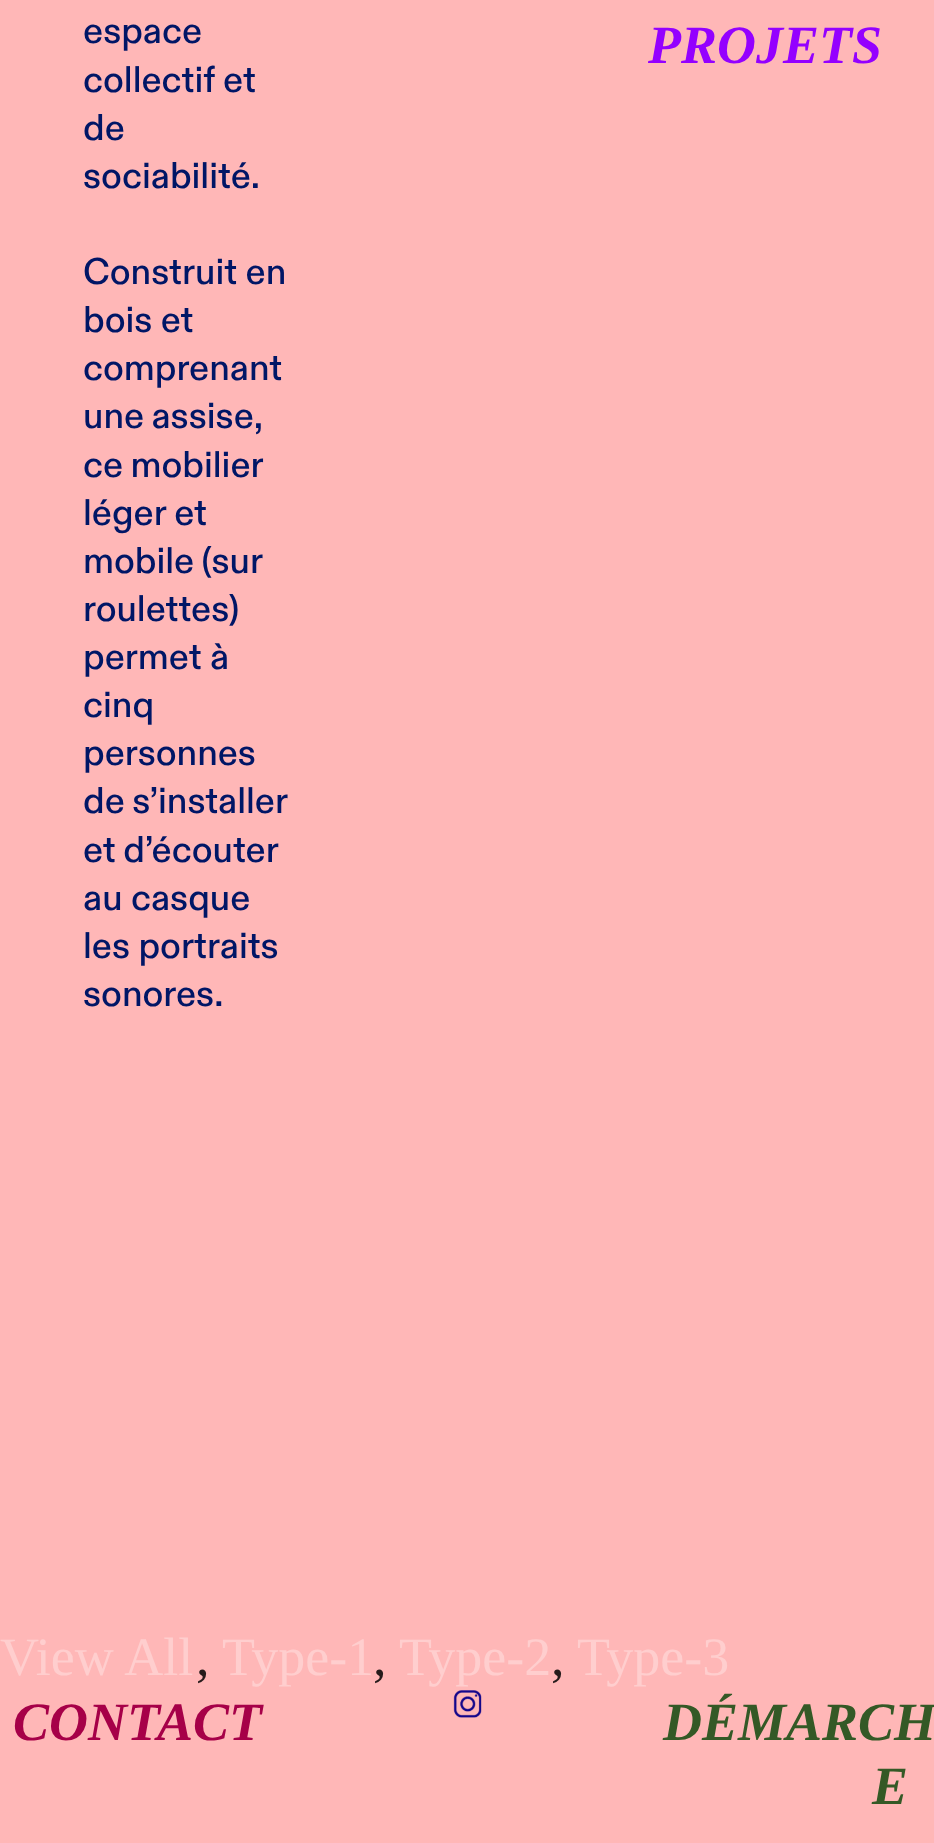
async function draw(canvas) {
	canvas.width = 934;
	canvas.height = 1843;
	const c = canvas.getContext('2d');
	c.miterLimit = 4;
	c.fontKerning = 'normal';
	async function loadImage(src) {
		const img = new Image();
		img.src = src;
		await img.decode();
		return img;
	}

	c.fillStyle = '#ffb7b7';
	c.fillRect(0, 0, 934, 1843);
	c.font = '500 37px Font';
	c.fillStyle = '#001666';
	for (const [text, x, y] of [
		['espace', 83, 43],
		['collectif et', 83, 92],
		['de', 83, 140],
		['sociabilité.', 83, 188],
		['Construit en', 83, 284],
		['bois et', 83, 332],
		['comprenant', 83, 380],
	]) {
		c.fillText(text, x, y);
	}
	c.wordSpacing = '-1px';
	c.fillText('une assise,', 83, 428);
	c.fillText('ce mobilier', 83, 477);
	c.wordSpacing = '0px';
	c.fillText('léger et', 83, 525);
	c.wordSpacing = '-1px';
	c.fillText('mobile (sur', 83, 573);
	c.wordSpacing = '0px';
	for (const [text, x, y] of [
		['roulettes)', 83, 621],
		['permet à', 83, 669],
		['cinq', 83, 717],
		['personnes', 83, 765],
	]) {
		c.fillText(text, x, y);
	}
	c.wordSpacing = '-1px';
	c.fillText('de s’installer', 83, 813);
	c.fillText('et d’écouter', 83, 862);
	c.wordSpacing = '0px';
	for (const [text, x, y] of [
		['au casque', 83, 910],
		['les portraits', 83, 958],
		['sonores.', 83, 1006],
	]) {
		c.fillText(text, x, y);
	}
	c.font = 'italic bold 54px Liberation Serif';
	c.fillStyle = '#9400ff';
	c.fillText('PROJETS', 648, 63);
	c.font = '54px Liberation Serif';
	c.fillStyle = '#ffcece';
	c.fillText('View All', 0, 1675);
	c.fillStyle = '#261b1b';
	c.fillText(',', 196, 1675);
	c.fillStyle = '#ffcece';
	c.fillText('Type-1', 222, 1675);
	c.fillStyle = '#261b1b';
	c.fillText(',', 373, 1675);
	c.fillStyle = '#ffcece';
	c.fillText('Type-2', 399, 1675);
	c.fillStyle = '#261b1b';
	c.fillText(',', 551, 1675);
	c.fillStyle = '#ffcece';
	c.fillText('Type-3', 577, 1675);
	c.font = 'italic bold 54px Liberation Serif';
	c.fillStyle = '#a60048';
	c.fillText('CONTACT', 13, 1740);
	c.drawImage(await loadImage('img1.png'), 453, 1690, 29, 28);
	c.fillStyle = '#345926';
	c.fillText('DÉMARCH', 663, 1740);
	c.fillText('E', 872, 1804);
}

draw(document.querySelector('canvas'));
